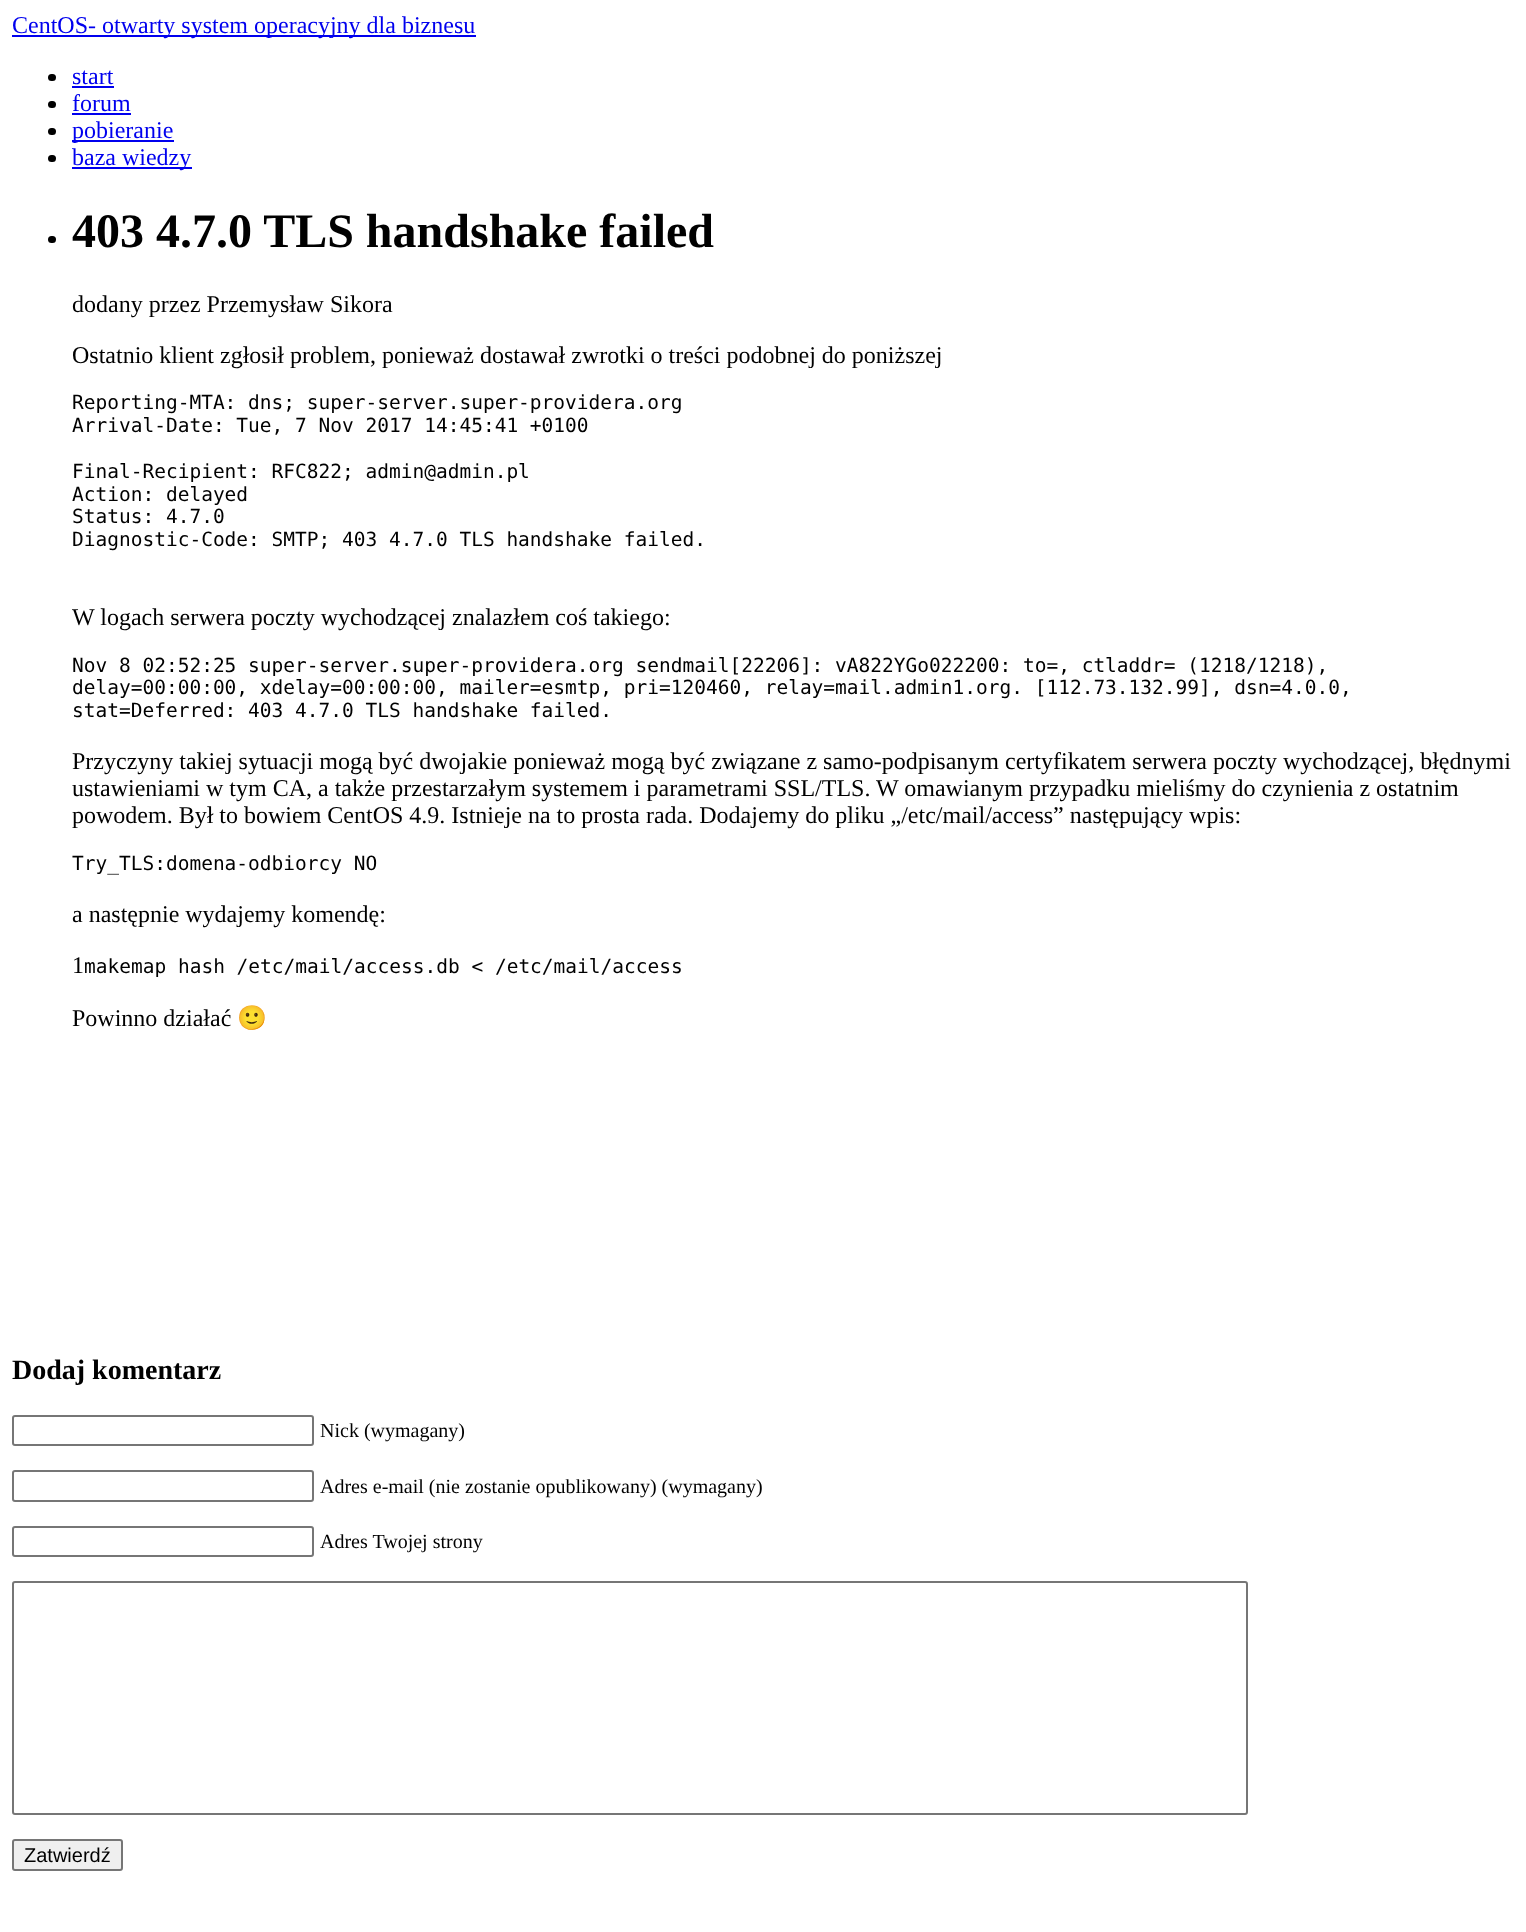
async function draw(canvas) {
	canvas.width = 1526;
	canvas.height = 1932;
	const c = canvas.getContext('2d');
	c.miterLimit = 4;
	c.fontKerning = 'normal';

	c.fillStyle = '#fff';
	c.fillRect(0, 0, 1526, 1932);
	c.fillStyle = '#00e';
	c.fillRect(12, 35, 464, 2);
	c.font = '24px Liberation Serif';
	c.fillText('CentOS- otwarty system operacyjny dla biznesu', 12, 33);
	c.fillStyle = '#000';
	c.beginPath();
	c.roundRect(48, 74, 8, 7, 3.5);
	c.fill();
	c.fillStyle = '#00e';
	c.fillText('start', 72, 84);
	c.fillRect(72, 86, 42, 2);
	c.fillStyle = '#000';
	c.beginPath();
	c.roundRect(48, 101, 8, 7, 3.5);
	c.fill();
	c.fillStyle = '#00e';
	c.fillText('forum', 72, 111);
	c.fillRect(72, 113, 59, 2);
	c.fillStyle = '#000';
	c.beginPath();
	c.roundRect(48, 128, 8, 7, 3.5);
	c.fill();
	c.fillStyle = '#00e';
	c.fillRect(72, 140, 102, 2);
	c.fillText('pobieranie', 72, 138);
	c.fillStyle = '#000';
	c.beginPath();
	c.roundRect(48, 155, 8, 7, 3.5);
	c.fill();
	c.fillStyle = '#00e';
	c.fillRect(72, 167, 120, 2);
	c.fillText('baza wiedzy', 72, 165);
	c.fillStyle = '#000';
	c.beginPath();
	c.roundRect(48, 236, 8, 7, 3.5);
	c.fill();
	c.font = 'bold 48px Liberation Serif';
	c.fillText('403 4.7.0 TLS handshake failed', 72, 247);
	c.font = '24px Liberation Serif';
	c.fillText('dodany przez Przemysław Sikora', 72, 312);
	c.fillText('Ostatnio klient zgłosił problem, ponieważ dostawał zwrotki o treści podobnej do poniższej', 72, 363);
	c.font = '19.5px DejaVu Sans Mono';
	for (const [text, x, y] of [
		['Reporting-MTA: dns; super-server.super-providera.org', 72, 409],
		['Arrival-Date: Tue, 7 Nov 2017 14:45:41 +0100', 72, 432],
		['Final-Recipient: RFC822; admin@admin.pl', 72, 478],
		['Action: delayed', 72, 501],
		['Status: 4.7.0', 72, 523],
		['Diagnostic-Code: SMTP; 403 4.7.0 TLS handshake failed.', 72, 546],
	]) {
		c.fillText(text, x, y);
	}
	c.font = '24px Liberation Serif';
	c.fillText('W logach serwera poczty wychodzącej znalazłem coś takiego:', 72, 625);
	c.font = '19.5px DejaVu Sans Mono';
	for (const [text, x, y] of [
		['Nov 8 02:52:25 super-server.super-providera.org sendmail[22206]: vA822YGo022200: to=, ctladdr= (1218/1218),', 72, 672],
		['delay=00:00:00, xdelay=00:00:00, mailer=esmtp, pri=120460, relay=mail.admin1.org. [112.73.132.99], dsn=4.0.0,', 72, 694],
		['stat=Deferred: 403 4.7.0 TLS handshake failed.', 72, 717],
	]) {
		c.fillText(text, x, y);
	}
	c.font = '24px Liberation Serif';
	for (const [text, x, y] of [
		['Przyczyny takiej sytuacji mogą być dwojakie ponieważ mogą być związane z samo-podpisanym certyfikatem serwera poczty wychodzącej, błędnymi', 72, 769],
		['ustawieniami w tym CA, a także przestarzałym systemem i parametrami SSL/TLS. W omawianym przypadku mieliśmy do czynienia z ostatnim', 72, 796],
		['powodem. Był to bowiem CentOS 4.9. Istnieje na to prosta rada. Dodajemy do pliku „/etc/mail/access” następujący wpis:', 72, 823],
	]) {
		c.fillText(text, x, y);
	}
	c.font = '19.5px DejaVu Sans Mono';
	c.fillText('Try_TLS:domena-odbiorcy NO', 72, 870);
	c.font = '24px Liberation Serif';
	c.fillText('a następnie wydajemy komendę:', 72, 922);
	c.fillText('1', 72, 973);
	c.font = '19.5px DejaVu Sans Mono';
	c.fillText('makemap hash /etc/mail/access.db < /etc/mail/access', 84, 973);
	c.font = '24px Liberation Serif';
	c.fillText('Powinno działać', 72, 1026);
	c.font = '24px Noto Color Emoji';
	c.fillText('🙂', 237, 1026);
	c.font = 'bold 28px Liberation Serif';
	c.fillText('Dodaj komentarz', 12, 1379);
	c.beginPath();
	c.roundRect(13, 1416, 300, 29, 2);
	c.strokeStyle = '#767676';
	c.lineWidth = 2;
	c.stroke();
	c.font = '20px Liberation Serif';
	c.fillText('Nick (wymagany)', 320, 1437);
	c.beginPath();
	c.roundRect(13, 1471, 300, 30, 2);
	c.stroke();
	c.fillText('Adres e-mail (nie zostanie opublikowany) (wymagany)', 320, 1493);
	c.beginPath();
	c.roundRect(13, 1527, 300, 29, 2);
	c.stroke();
	c.fillText('Adres Twojej strony', 320, 1548);
	c.beginPath();
	c.roundRect(13, 1582, 1234, 232, 2);
	c.stroke();
	c.fillStyle = '#efefef';
	c.beginPath();
	c.roundRect(13, 1840, 109, 30, 2);
	c.fill();
	c.stroke();
	c.font = '20px Liberation Sans';
	c.fillStyle = '#000';
	c.fillText('Zatwierdź', 24, 1862);
}

draw(document.querySelector('canvas'));
